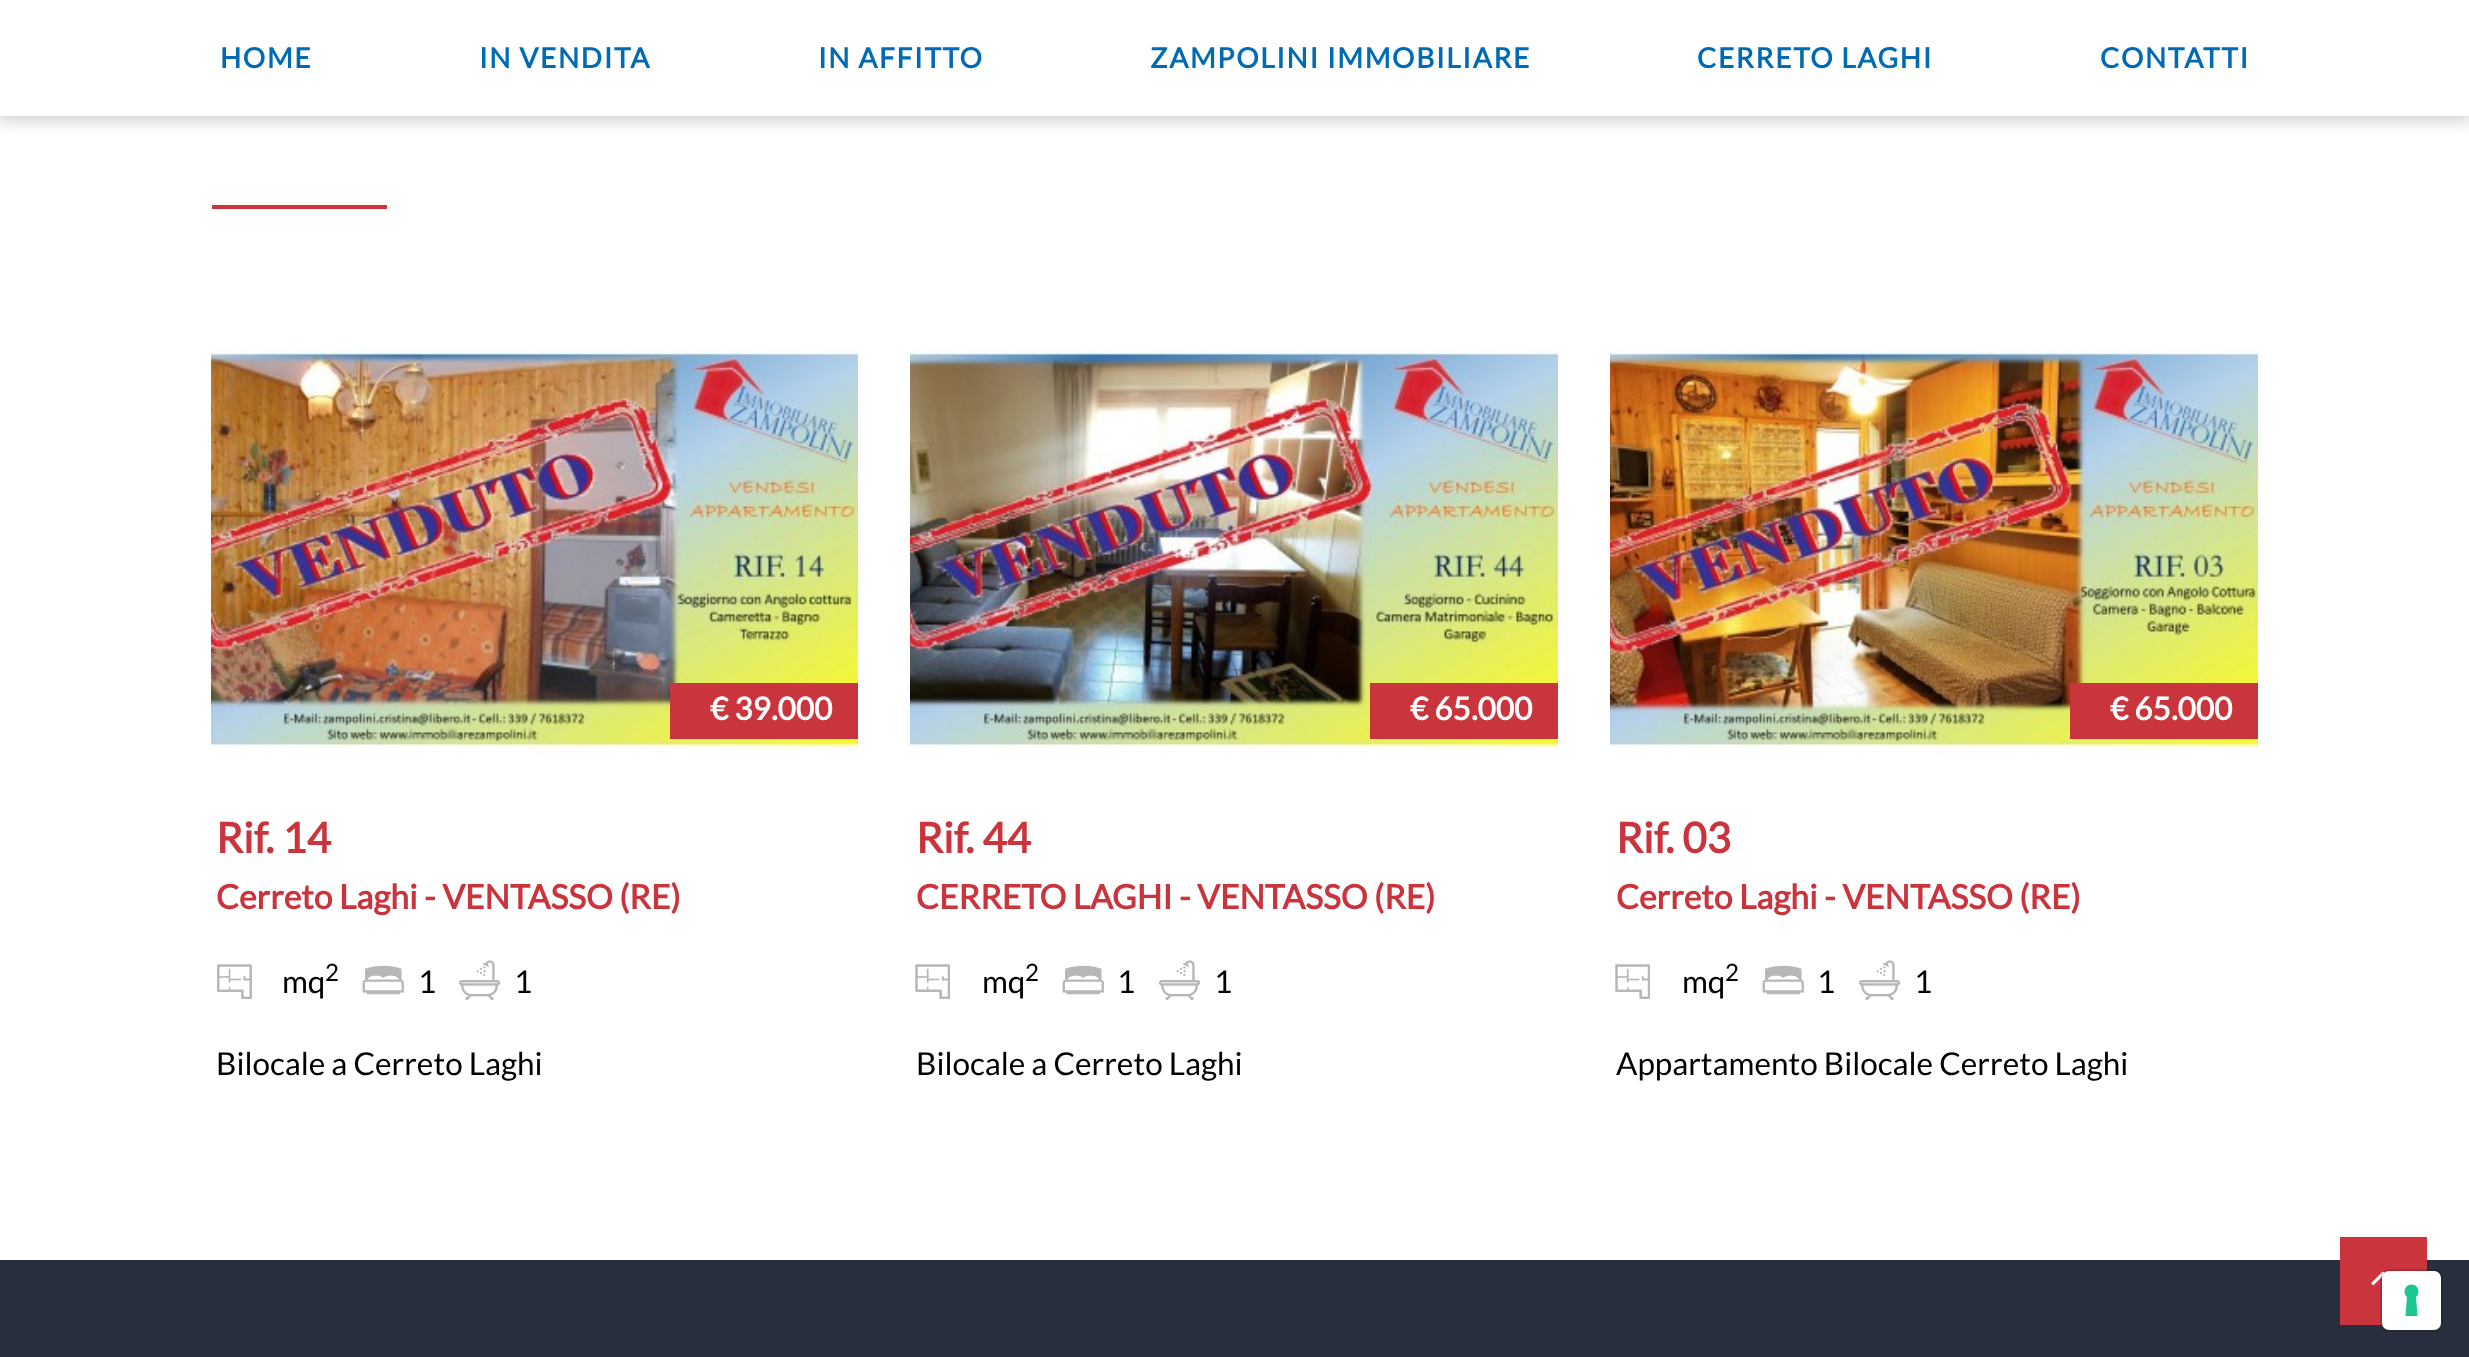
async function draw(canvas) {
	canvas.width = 2469;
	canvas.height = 1357;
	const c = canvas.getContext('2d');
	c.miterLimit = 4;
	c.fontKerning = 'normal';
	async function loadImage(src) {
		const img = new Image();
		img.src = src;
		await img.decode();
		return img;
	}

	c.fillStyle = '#fff';
	c.fillRect(0, 0, 2469, 1357);
	c.fillStyle = '#00000038';
	c.filter = 'blur(9px)';
	c.beginPath();
	c.rect(-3, -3, 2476, 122);
	c.fill();
	c.filter = 'none';
	c.fillStyle = '#fff';
	c.fillRect(0, 0, 2469, 116);
	c.letterSpacing = '1.7px';
	c.font = 'bold 28px Lato';
	c.fillStyle = '#006ab5';
	for (const [text, x, y] of [
		['HOME', 220, 68],
		['IN VENDITA', 479, 68],
		['IN AFFITTO', 818, 68],
		['ZAMPOLINI IMMOBILIARE', 1150, 68],
		['CERRETO LAGHI', 1697, 68],
		['CONTATTI', 2100, 68],
	]) {
		c.fillText(text, x, y);
	}
	c.fillStyle = '#ca343d';
	c.fillRect(212, 205, 175, 4);
	c.drawImage(await loadImage('img1.png'), 211, 345, 647, 411);
	c.fillRect(670, 683, 188, 56);
	c.letterSpacing = '0px';
	c.font = 'bold 31.5px Lato';
	c.fillStyle = '#fff';
	c.fillText('€ 39.000', 710, 720);
	c.font = 'bold 42px Lato';
	c.fillStyle = '#ca343d';
	c.fillText('Rif. 14', 216, 853);
	c.font = 'bold 33.6px Lato';
	c.fillText('Cerreto Laghi - VENTASSO (RE)', 216, 909);
	c.drawImage(await loadImage('img2.png'), 217, 964, 35, 35);
	c.font = '31.5px Lato';
	c.fillStyle = '#000';
	c.fillText('mq', 282, 993);
	c.font = '24px Lato';
	c.fillText('2', 325, 981);
	c.drawImage(await loadImage('img3.png'), 362, 965, 42, 30);
	c.font = '31.5px Lato';
	c.fillText('1', 418, 993);
	c.drawImage(await loadImage('img4.png'), 459, 960, 42, 41);
	c.fillText('1', 514, 993);
	c.fillText('Bilocale a Cerreto Laghi', 216, 1075);
	c.drawImage(await loadImage('img5.png'), 910, 345, 648, 411);
	c.fillStyle = '#ca343d';
	c.fillRect(1370, 683, 188, 56);
	c.font = 'bold 31.5px Lato';
	c.fillStyle = '#fff';
	c.fillText('€ 65.000', 1410, 720);
	c.font = 'bold 42px Lato';
	c.fillStyle = '#ca343d';
	c.fillText('Rif. 44', 916, 853);
	c.font = 'bold 33.6px Lato';
	c.fillText('CERRETO LAGHI - VENTASSO (RE)', 916, 909);
	c.drawImage(await loadImage('img6.png'), 915, 964, 35, 35);
	c.font = '31.5px Lato';
	c.fillStyle = '#000';
	c.fillText('mq', 982, 993);
	c.font = '24px Lato';
	c.fillText('2', 1025, 981);
	c.drawImage(await loadImage('img3.png'), 1062, 965, 42, 30);
	c.font = '31.5px Lato';
	c.fillText('1', 1117, 993);
	c.drawImage(await loadImage('img4.png'), 1159, 960, 42, 41);
	c.fillText('1', 1214, 993);
	c.fillText('Bilocale a Cerreto Laghi', 916, 1075);
	c.drawImage(await loadImage('img7.png'), 1610, 345, 648, 411);
	c.fillStyle = '#ca343d';
	c.fillRect(2070, 683, 188, 56);
	c.font = 'bold 31.5px Lato';
	c.fillStyle = '#fff';
	c.fillText('€ 65.000', 2110, 720);
	c.font = 'bold 42px Lato';
	c.fillStyle = '#ca343d';
	c.fillText('Rif. 03', 1616, 853);
	c.font = 'bold 33.6px Lato';
	c.fillText('Cerreto Laghi - VENTASSO (RE)', 1616, 909);
	c.drawImage(await loadImage('img6.png'), 1615, 964, 35, 35);
	c.font = '31.5px Lato';
	c.fillStyle = '#000';
	c.fillText('mq', 1682, 993);
	c.font = '24px Lato';
	c.fillText('2', 1725, 981);
	c.drawImage(await loadImage('img3.png'), 1762, 965, 42, 30);
	c.font = '31.5px Lato';
	c.fillText('1', 1817, 993);
	c.drawImage(await loadImage('img4.png'), 1859, 960, 42, 41);
	c.fillText('1', 1914, 993);
	c.fillText('Appartamento Bilocale Cerreto Laghi', 1616, 1075);
	c.fillStyle = '#282e3e';
	c.fillRect(0, 1260, 2469, 97);
	c.fillStyle = '#ca343d';
	c.fillRect(2340, 1237, 87, 88);
	c.drawImage(await loadImage('img8.png'), 2371, 1271, 14, 15);
	c.beginPath();
	c.roundRect(2381, 1270, 61, 61, 8);
	c.strokeStyle = '#00000026';
	c.lineWidth = 2;
	c.stroke();
	c.fillStyle = '#fff';
	c.beginPath();
	c.roundRect(2382, 1271, 59, 59, 7);
	c.fill();
	c.fillStyle = '#1cc691';
	c.beginPath();
	c.moveTo(2411.5, 1284.5);
	c.bezierCurveTo(2418, 1284.5, 2421, 1292.5, 2416, 1297);
	c.lineTo(2417.5, 1316);
	c.lineTo(2405.5, 1316);
	c.lineTo(2407, 1297);
	c.bezierCurveTo(2402, 1292.5, 2405, 1284.5, 2411.5, 1284.5);
	c.closePath();
	c.fill('evenodd');
}

draw(document.querySelector('canvas'));
